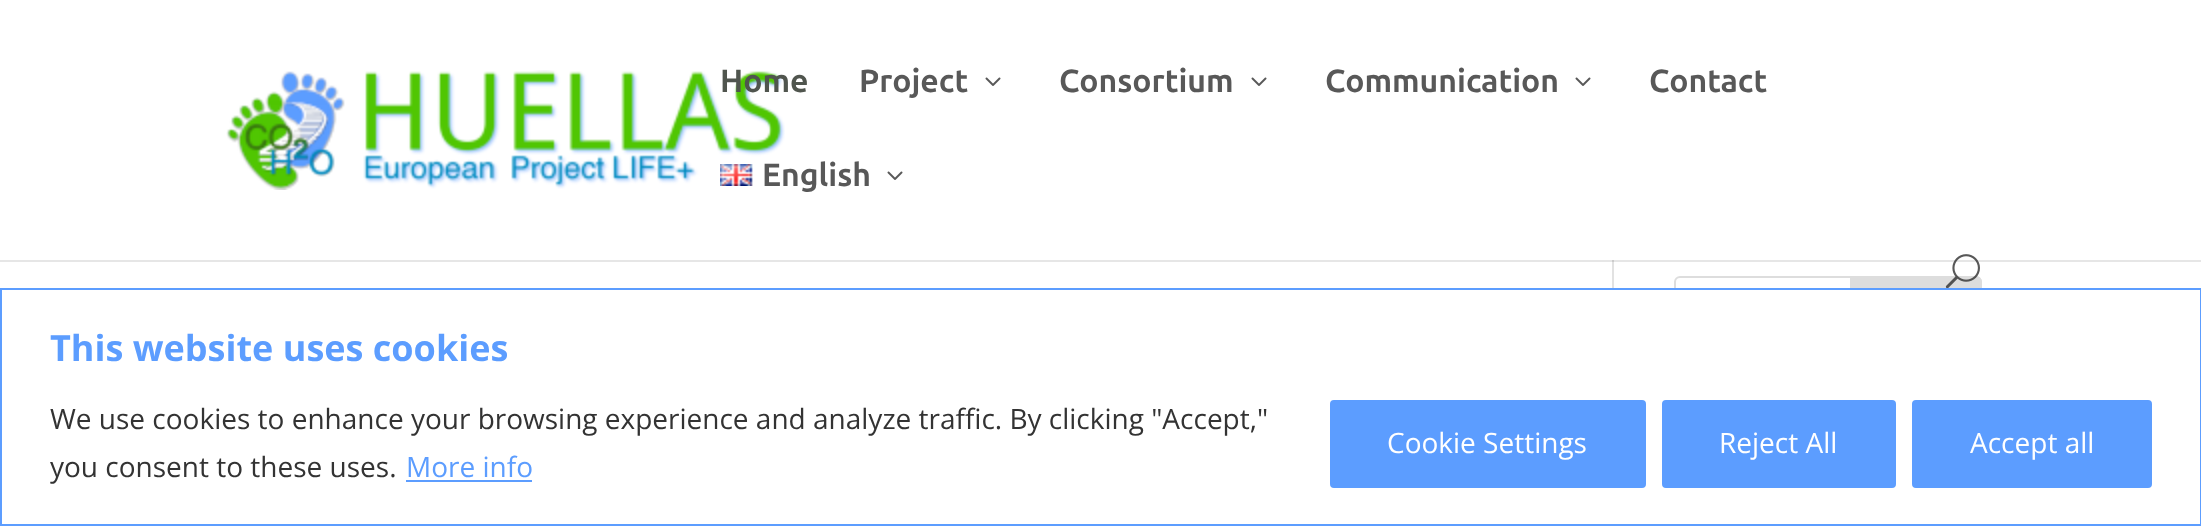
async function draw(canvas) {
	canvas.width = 2201;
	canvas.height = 526;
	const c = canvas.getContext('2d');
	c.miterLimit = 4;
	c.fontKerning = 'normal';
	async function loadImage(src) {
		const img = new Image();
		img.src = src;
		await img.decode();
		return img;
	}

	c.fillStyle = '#fff';
	c.fillRect(0, 0, 2201, 526);
	c.fillStyle = '#e6e6e6';
	c.fillRect(0, 260, 2201, 2);
	c.drawImage(await loadImage('img1.png'), 226, 70, 559, 120);
	c.font = 'bold 32px Ubuntu';
	c.fillStyle = '#50554e';
	c.fillText('Home', 720, 92);
	c.fillStyle = '#585858';
	c.fillText('Project', 859, 92);
	c.drawImage(await loadImage('img2.png'), 985, 77, 16, 9);
	c.fillText('Consortium', 1059, 92);
	c.drawImage(await loadImage('img2.png'), 1251, 77, 16, 9);
	c.fillText('Communication', 1325, 92);
	c.drawImage(await loadImage('img2.png'), 1575, 77, 16, 9);
	c.fillText('Contact', 1649, 92);
	c.drawImage(await loadImage('img3.png'), 720, 164, 33, 22);
	c.fillText('English', 762, 186);
	c.drawImage(await loadImage('img2.png'), 887, 171, 16, 9);
	c.beginPath();
	c.roundRect(1675, 277, 306, 78, 5);
	c.strokeStyle = '#ddd';
	c.lineWidth = 2;
	c.stroke();
	c.fillStyle = '#ddd';
	c.beginPath();
	c.roundRect(1851, 277, 130, 78, [0, 5, 5, 0]);
	c.fill();
	c.stroke();
	c.drawImage(await loadImage('img4.png'), 1945, 254, 35, 34);
	for (const [x, y, w, h, color] of [
		[1612, 262, 2, 26, '#e2e2e2'],
		[1612, 260, 2, 2, '#cbcbcb'],
		[1674, 290, 308, 66, '#fff'],
	]) {
		c.fillStyle = color;
		c.fillRect(x, y, w, h);
	}
	c.strokeStyle = '#5c9dff';
	c.strokeRect(1, 289, 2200, 236);
	c.font = 'bold 36px Open Sans';
	c.fillStyle = '#5c9dff';
	c.fillText('This website uses cookies', 50, 361);
	c.font = '28px Open Sans';
	c.fillStyle = '#333';
	c.fillText('We use cookies to enhance your browsing experience and analyze traffic. By clicking "Accept,"', 50, 429);
	c.fillText('you consent to these uses.', 50, 477);
	c.fillStyle = '#5c9dff';
	c.fillText('More info', 406, 477);
	c.fillRect(406, 480, 126, 2);
	c.beginPath();
	c.roundRect(1332, 402, 312, 84, 2);
	c.fill();
	c.lineWidth = 4;
	c.stroke();
	c.fillStyle = '#fff';
	c.fillText('Cookie Settings', 1387, 453);
	c.fillStyle = '#5c9dff';
	c.beginPath();
	c.roundRect(1664, 402, 230, 84, 2);
	c.fill();
	c.stroke();
	c.fillStyle = '#fff';
	c.fillText('Reject All', 1719, 453);
	c.fillStyle = '#5c9dff';
	c.beginPath();
	c.roundRect(1914, 402, 236, 84, 2);
	c.fill();
	c.stroke();
	c.fillStyle = '#fff';
	c.fillText('Accept all', 1970, 453);
}

draw(document.querySelector('canvas'));
